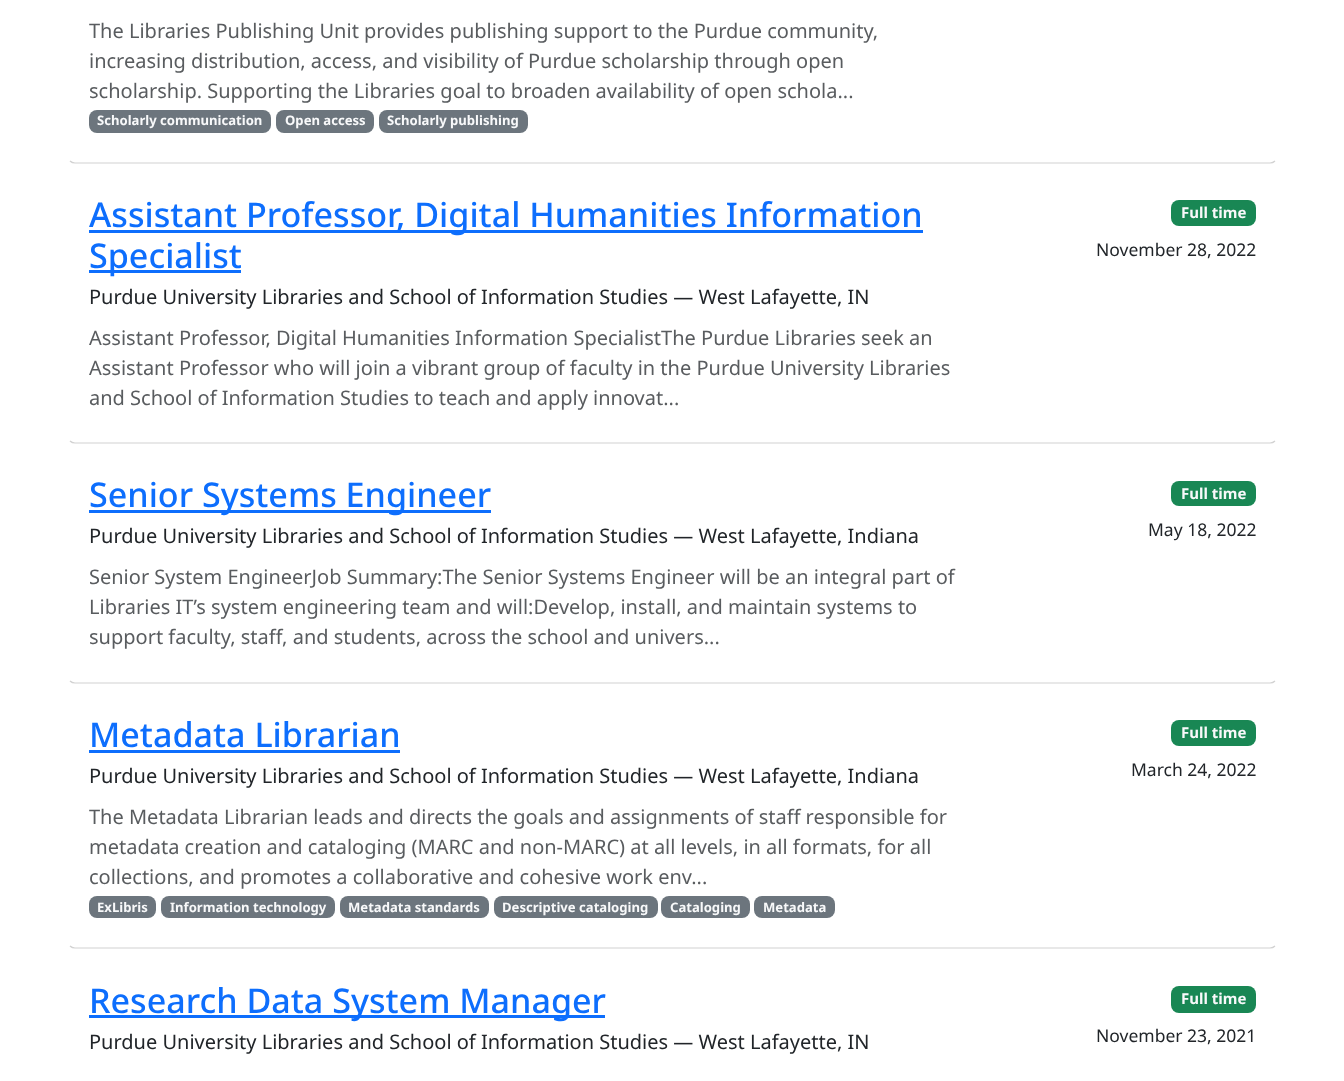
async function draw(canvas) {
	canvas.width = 1344;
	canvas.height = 1081;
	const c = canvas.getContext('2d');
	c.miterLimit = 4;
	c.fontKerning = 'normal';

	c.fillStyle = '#fff';
	c.fillRect(0, 0, 1344, 1081);
	c.beginPath();
	c.moveTo(1275, 161);
	c.bezierCurveTo(1273.5, 162.5, 1272, 163, 1270, 163);
	c.lineTo(75, 163);
	c.bezierCurveTo(73, 163, 71.5, 162.5, 70, 161);
	c.strokeStyle = '#d2d2d2';
	c.lineWidth = 1.2;
	c.stroke();
	c.font = '20px Noto Sans';
	c.fillStyle = '#595c5f';
	for (const [text, x, y] of [
		['The Libraries Publishing Unit provides publishing support to the Purdue community,', 89, 38],
		['increasing distribution, access, and visibility of Purdue scholarship through open', 89, 68],
		['scholarship. Supporting the Libraries goal to broaden availability of open schola...', 89, 98],
	]) {
		c.fillText(text, x, y);
	}
	c.fillStyle = '#6c757d';
	c.beginPath();
	c.roundRect(89, 110, 182, 23, 8);
	c.fill();
	c.font = 'bold 13.1px Noto Sans';
	c.fillStyle = '#f8f9fa';
	c.fillText('Scholarly communication', 97, 125);
	c.fillStyle = '#6c757d';
	c.beginPath();
	c.roundRect(276, 110, 98, 23, 8);
	c.fill();
	c.fillStyle = '#f8f9fa';
	c.fillText('Open access', 285, 125);
	c.fillStyle = '#6c757d';
	c.beginPath();
	c.roundRect(379, 110, 149, 23, 8);
	c.fill();
	c.fillStyle = '#f8f9fa';
	c.fillText('Scholarly publishing', 387, 125);
	c.beginPath();
	c.moveTo(1275, 441);
	c.bezierCurveTo(1273.5, 442.5, 1272, 443, 1270, 443);
	c.lineTo(75, 443);
	c.bezierCurveTo(73, 443, 71.5, 442.5, 70, 441);
	c.stroke();
	c.fillStyle = '#0d6efd';
	c.fillRect(89, 230, 834, 3);
	c.font = '500 34.1px Noto Sans';
	c.fillText('Assistant Professor, Digital Humanities Information', 89, 227);
	c.fillRect(89, 270, 152, 3);
	c.fillText('Specialist', 89, 268);
	c.font = '20px Noto Sans';
	c.fillStyle = '#212529';
	c.fillText('Purdue University Libraries and School of Information Studies — West Lafayette, IN', 89, 304);
	c.fillStyle = '#198754';
	c.beginPath();
	c.roundRect(1171, 200, 85, 26, 8);
	c.fill();
	c.font = 'bold 15px Noto Sans';
	c.fillStyle = '#f8f9fa';
	c.fillText('Full time', 1181, 218);
	c.font = '17.5px Noto Sans';
	c.fillStyle = '#212529';
	c.fillText('November 28, 2022', 1096, 256);
	c.font = '20px Noto Sans';
	c.fillStyle = '#595c5f';
	for (const [text, x, y] of [
		['Assistant Professor, Digital Humanities Information SpecialistThe Purdue Libraries seek an', 89, 345],
		['Assistant Professor who will join a vibrant group of faculty in the Purdue University Libraries', 89, 375],
		['and School of Information Studies to teach and apply innovat...', 89, 405],
	]) {
		c.fillText(text, x, y);
	}
	c.beginPath();
	c.moveTo(1275, 681);
	c.bezierCurveTo(1273.5, 682.5, 1272, 683, 1270, 683);
	c.lineTo(75, 683);
	c.bezierCurveTo(73, 683, 71.5, 682.5, 70, 681);
	c.stroke();
	c.fillStyle = '#0d6efd';
	c.fillRect(89, 510, 402, 3);
	c.font = '500 34.1px Noto Sans';
	c.fillText('Senior Systems Engineer', 89, 507);
	c.font = '20px Noto Sans';
	c.fillStyle = '#212529';
	c.fillText('Purdue University Libraries and School of Information Studies — West Lafayette, Indiana', 89, 543);
	c.fillStyle = '#198754';
	c.beginPath();
	c.roundRect(1171, 481, 85, 25, 8);
	c.fill();
	c.font = 'bold 15px Noto Sans';
	c.fillStyle = '#f8f9fa';
	c.fillText('Full time', 1181, 499);
	c.font = '17.5px Noto Sans';
	c.fillStyle = '#212529';
	c.fillText('May 18, 2022', 1148, 536);
	c.font = '20px Noto Sans';
	c.fillStyle = '#595c5f';
	for (const [text, x, y] of [
		['Senior System EngineerJob Summary:The Senior Systems Engineer will be an integral part of', 89, 584],
		['Libraries IT’s system engineering team and will:Develop, install, and maintain systems to', 89, 614],
		['support faculty, staff, and students, across the school and univers...', 89, 644],
	]) {
		c.fillText(text, x, y);
	}
	c.beginPath();
	c.moveTo(1275, 946);
	c.bezierCurveTo(1273.5, 947.5, 1272, 948, 1270, 948);
	c.lineTo(75, 948);
	c.bezierCurveTo(73, 948, 71.5, 947.5, 70, 946);
	c.stroke();
	c.font = '500 34.1px Noto Sans';
	c.fillStyle = '#0d6efd';
	c.fillText('Metadata Librarian', 89, 747);
	c.fillRect(89, 750, 311, 3);
	c.font = '20px Noto Sans';
	c.fillStyle = '#212529';
	c.fillText('Purdue University Libraries and School of Information Studies — West Lafayette, Indiana', 89, 783);
	c.fillStyle = '#198754';
	c.beginPath();
	c.roundRect(1171, 720, 85, 26, 8);
	c.fill();
	c.font = 'bold 15px Noto Sans';
	c.fillStyle = '#f8f9fa';
	c.fillText('Full time', 1181, 738);
	c.font = '17.5px Noto Sans';
	c.fillStyle = '#212529';
	c.fillText('March 24, 2022', 1131, 776);
	c.font = '20px Noto Sans';
	c.fillStyle = '#595c5f';
	for (const [text, x, y] of [
		['The Metadata Librarian leads and directs the goals and assignments of staff responsible for', 89, 824],
		['metadata creation and cataloging (MARC and non-MARC) at all levels, in all formats, for all', 89, 854],
		['collections, and promotes a collaborative and cohesive work env...', 89, 884],
	]) {
		c.fillText(text, x, y);
	}
	c.fillStyle = '#6c757d';
	c.beginPath();
	c.roundRect(89, 896, 67, 22, 8);
	c.fill();
	c.font = 'bold 13.1px Noto Sans';
	c.fillStyle = '#f8f9fa';
	c.fillText('ExLibris', 97, 912);
	c.fillStyle = '#6c757d';
	c.beginPath();
	c.roundRect(161, 896, 174, 22, 8);
	c.fill();
	c.fillStyle = '#f8f9fa';
	c.fillText('Information technology', 170, 912);
	c.fillStyle = '#6c757d';
	c.beginPath();
	c.roundRect(340, 896, 149, 22, 8);
	c.fill();
	c.fillStyle = '#f8f9fa';
	c.fillText('Metadata standards', 348, 912);
	c.fillStyle = '#6c757d';
	c.beginPath();
	c.roundRect(494, 896, 164, 22, 8);
	c.fill();
	c.fillStyle = '#f8f9fa';
	c.fillText('Descriptive cataloging', 502, 912);
	c.fillStyle = '#6c757d';
	c.beginPath();
	c.roundRect(661, 896, 89, 22, 8);
	c.fill();
	c.fillStyle = '#f8f9fa';
	c.fillText('Cataloging', 670, 912);
	c.fillStyle = '#6c757d';
	c.beginPath();
	c.roundRect(754, 896, 81, 22, 8);
	c.fill();
	c.fillStyle = '#f8f9fa';
	c.fillText('Metadata', 763, 912);
	c.fillStyle = '#0d6efd';
	c.fillRect(89, 1015, 516, 3);
	c.font = '500 34.1px Noto Sans';
	c.fillText('Research Data System Manager', 89, 1013);
	c.font = '20px Noto Sans';
	c.fillStyle = '#212529';
	c.fillText('Purdue University Libraries and School of Information Studies — West Lafayette, IN', 89, 1049);
	c.fillStyle = '#198754';
	c.beginPath();
	c.roundRect(1171, 986, 85, 27, 8);
	c.fill();
	c.font = 'bold 15px Noto Sans';
	c.fillStyle = '#f8f9fa';
	c.fillText('Full time', 1181, 1004);
	c.font = '17.5px Noto Sans';
	c.fillStyle = '#212529';
	c.fillText('November 23, 2021', 1096, 1042);
}

draw(document.querySelector('canvas'));
